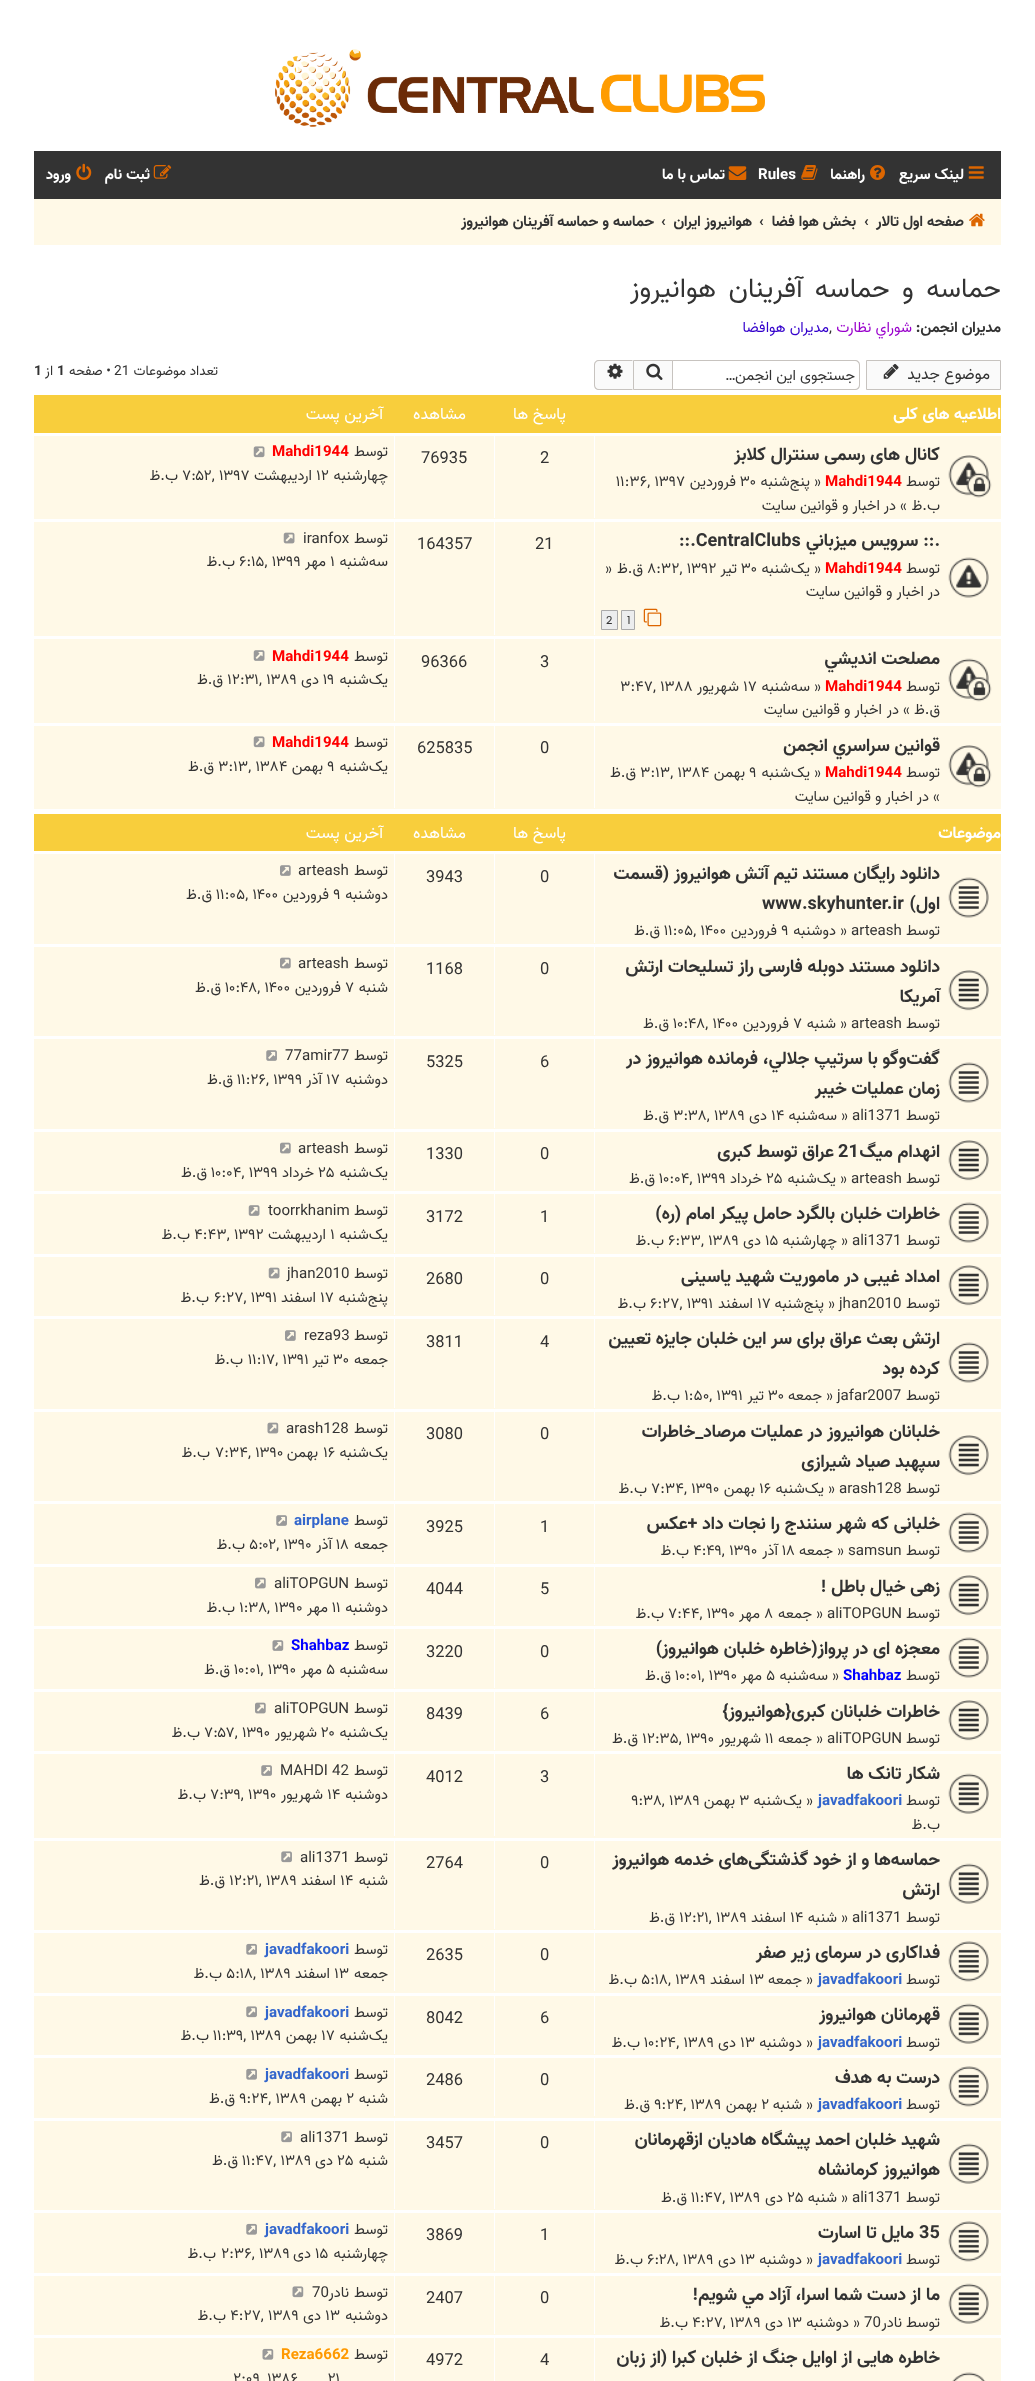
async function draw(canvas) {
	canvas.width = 1035;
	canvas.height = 2381;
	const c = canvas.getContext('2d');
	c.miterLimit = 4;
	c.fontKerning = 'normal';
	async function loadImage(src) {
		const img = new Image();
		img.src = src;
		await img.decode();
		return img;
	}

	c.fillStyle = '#fff';
	c.fillRect(0, 0, 1035, 2381);
	c.drawImage(await loadImage('img1.png'), 275, 49, 490, 78);
	c.fillStyle = '#333';
	c.fillRect(34, 151, 967, 48);
	c.drawImage(await loadImage('img2.png'), 968, 166, 16, 13);
	c.direction = 'rtl';
	c.font = 'bold 15.1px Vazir';
	c.fillStyle = '#fff';
	c.fillText('لینک سریع', 964, 179);
	c.drawImage(await loadImage('img3.png'), 870, 165, 15, 15);
	c.fillText('راهنما', 865, 179);
	c.drawImage(await loadImage('img4.png'), 801, 165, 17, 15);
	c.direction = 'ltr';
	c.fillText('Rules', 758, 179);
	c.drawImage(await loadImage('img5.png'), 728, 166, 19, 14);
	c.direction = 'rtl';
	c.fillText('تماس با ما', 725, 179);
	c.drawImage(await loadImage('img6.png'), 153, 165, 19, 14);
	c.fillText('ثبت نام', 150, 179);
	c.drawImage(await loadImage('img7.png'), 76, 163, 16, 17);
	c.fillText('ورود', 71, 179);
	c.fillStyle = '#fff9e7';
	c.fillRect(34, 199, 967, 46);
	c.drawImage(await loadImage('img8.png'), 969, 213, 16, 14);
	c.fillStyle = '#333';
	c.fillText('صفحه اول تالار', 964, 226);
	c.direction = 'ltr';
	c.fillText('‹', 864, 226);
	c.direction = 'rtl';
	c.fillText('بخش هوا فضا', 856, 226);
	c.direction = 'ltr';
	c.fillText('‹', 759, 226);
	c.save();
	c.beginPath();
	c.rect(674, 206, 79, 33);
	c.clip();
	c.direction = 'rtl';
	c.fillText('هوانيروز ايران', 752, 226);
	c.restore();
	c.fillText('‹', 661, 226);
	c.direction = 'rtl';
	c.fillText('حماسه و حماسه آفرينان هوانيروز', 654, 226);
	c.wordSpacing = '5px';
	c.font = '27.5px Vazir';
	c.fillText('حماسه و حماسه آفرينان هوانيروز', 1001, 297);
	c.wordSpacing = '0px';
	c.font = 'bold 15.1px Vazir';
	c.fillText('مدیران انجمن:', 1001, 332);
	c.font = '15.1px Vazir';
	c.fillStyle = '#90c';
	c.fillText('شوراي نظارت', 912, 332);
	c.direction = 'ltr';
	c.fillStyle = '#333';
	c.fillText(',', 829, 332);
	c.direction = 'rtl';
	c.fillStyle = '#30c';
	c.fillText('مديران هوافضا', 829, 332);
	c.fillStyle = '#fafafa';
	c.beginPath();
	c.rect(866.5, 360.5, 134, 29);
	c.fill();
	c.strokeStyle = '#c7c3bf';
	c.stroke();
	c.font = '16.25px Vazir';
	c.fillStyle = '#333';
	c.fillText('موضوع جدید', 990, 379);
	c.drawImage(await loadImage('img9.png'), 883, 364, 16, 15);
	c.fillStyle = '#c7c3bf';
	c.beginPath();
	c.moveTo(672, 360);
	c.lineTo(855, 360);
	c.bezierCurveTo(858, 360, 860, 362, 860, 365);
	c.lineTo(860, 385);
	c.bezierCurveTo(860, 388, 858, 390, 855, 390);
	c.lineTo(672, 390);
	c.closePath();
	c.moveTo(672, 361);
	c.lineTo(855, 361);
	c.bezierCurveTo(857, 361, 859, 363, 859, 365);
	c.lineTo(859, 385);
	c.bezierCurveTo(859, 387, 857, 389, 855, 389);
	c.lineTo(672, 389);
	c.closePath();
	c.fill('evenodd');
	c.font = '15.1px Vazir';
	c.fillStyle = '#333';
	c.fillText('جستجوی این انجمن…', 855, 380);
	c.fillStyle = '#fafafa';
	c.beginPath();
	c.rect(633.5, 360.5, 39, 29);
	c.fill();
	c.stroke();
	c.drawImage(await loadImage('img10.png'), 646, 363, 17, 17);
	c.beginPath();
	c.roundRect(595, 361, 38, 28, [4, 0, 0, 4]);
	c.fill();
	c.fillStyle = '#c7c3bf';
	c.beginPath();
	c.moveTo(599, 360);
	c.lineTo(632.5, 360);
	c.lineTo(632.5, 390);
	c.lineTo(599, 390);
	c.bezierCurveTo(596, 390, 594, 388, 594, 385);
	c.lineTo(594, 365);
	c.bezierCurveTo(594, 362, 596, 360, 599, 360);
	c.closePath();
	c.moveTo(599, 361);
	c.lineTo(632.5, 361);
	c.lineTo(632.5, 389);
	c.lineTo(599, 389);
	c.bezierCurveTo(596.5, 389, 595, 387, 595, 385);
	c.lineTo(595, 365);
	c.bezierCurveTo(595, 363, 596.5, 361, 599, 361);
	c.closePath();
	c.fill('evenodd');
	c.drawImage(await loadImage('img11.png'), 607, 363, 16, 16);
	c.font = '13.75px Vazir';
	c.fillStyle = '#333';
	c.fillText('تعداد موضوعات', 218, 375);
	c.direction = 'ltr';
	c.fillText('21', 114, 375);
	c.direction = 'rtl';
	c.fillText('• صفحه', 111, 375);
	c.direction = 'ltr';
	c.font = 'bold 13.75px Vazir';
	c.fillText('1', 57, 375);
	c.direction = 'rtl';
	c.font = '13.75px Vazir';
	c.fillText('از', 53, 375);
	c.direction = 'ltr';
	c.font = 'bold 13.75px Vazir';
	c.fillText('1', 34, 375);
	c.fillStyle = '#f8ce3c';
	c.fillRect(34, 395, 967, 38);
	c.direction = 'rtl';
	c.font = 'bold 16.5px Vazir';
	c.fillStyle = '#fff';
	c.fillText('اطلاعیه های کلی', 1001, 419);
	c.font = '16.5px Vazir';
	for (const [text, x, y] of [
		['پاسخ ها', 566, 419],
		['مشاهده', 466, 419],
		['آخرین پست', 383, 419],
	]) {
		c.fillText(text, x, y);
	}
	c.fillStyle = '#fff9e7';
	c.fillRect(34, 436, 967, 83);
	c.drawImage(await loadImage('img12.png'), 948, 455, 44, 43);
	c.font = 'bold 18.1px Vazir';
	c.fillStyle = '#333';
	c.fillText('کانال های رسمی سنترال کلابز', 940, 460);
	c.font = '15.1px Vazir';
	c.fillText('توسط', 940, 486);
	c.direction = 'ltr';
	c.font = 'bold 15.1px Vazir';
	c.fillStyle = '#f00';
	c.fillText('Mahdi1944', 825, 486);
	c.font = '15.1px Vazir';
	c.fillStyle = '#333';
	c.fillText('»', 814, 486);
	c.direction = 'rtl';
	c.fillText('پنج‌شنبه', 810, 486);
	c.direction = 'ltr';
	c.fillText('۳۰', 740, 486);
	c.direction = 'rtl';
	c.fillText('فروردین', 736, 486);
	c.direction = 'ltr';
	c.fillText('۱۱:۳۶, ۱۳۹۷', 616, 486);
	c.direction = 'rtl';
	for (const [text, x, y] of [
		['ب.ظ', 940, 510],
		['» در', 907, 510],
		['اخبار و قوانين سايت', 880, 510],
	]) {
		c.fillText(text, x, y);
	}
	c.fillStyle = '#fff';
	c.fillRect(594, 435, 1, 83);
	c.direction = 'ltr';
	c.font = '16.5px Vazir';
	c.fillStyle = '#333';
	c.fillText('2', 540, 463);
	c.fillStyle = '#fff';
	c.fillRect(494, 435, 1, 83);
	c.fillStyle = '#333';
	c.fillText('76935', 421, 463);
	c.fillStyle = '#fff';
	c.fillRect(394, 435, 1, 83);
	c.direction = 'rtl';
	c.font = '15.1px Vazir';
	c.fillStyle = '#333';
	c.fillText('توسط', 388, 456);
	c.direction = 'ltr';
	c.font = 'bold 15.1px Vazir';
	c.fillStyle = '#f00';
	c.fillText('Mahdi1944', 272, 456);
	c.drawImage(await loadImage('img13.png'), 253, 446, 12, 12);
	c.direction = 'rtl';
	c.font = '15.1px Vazir';
	c.fillStyle = '#333';
	c.fillText('چهارشنبه', 388, 480);
	c.direction = 'ltr';
	c.fillText('۱۲', 316, 480);
	c.direction = 'rtl';
	c.fillText('اردیبهشت', 312, 480);
	c.direction = 'ltr';
	c.fillText('۷:۵۲, ۱۳۹۷', 182, 480);
	c.direction = 'rtl';
	c.fillText('ب.ظ', 178, 480);
	c.fillStyle = '#fff9e7';
	c.fillRect(34, 522, 967, 114);
	c.drawImage(await loadImage('img14.png'), 948, 557, 41, 41);
	c.font = 'bold 18.1px Vazir';
	c.fillStyle = '#333';
	c.fillText('.:: سرويس ميزباني', 940, 546);
	c.direction = 'ltr';
	c.fillText('::.CentralClubs', 679, 546);
	c.direction = 'rtl';
	c.font = '15.1px Vazir';
	c.fillText('توسط', 940, 573);
	c.direction = 'ltr';
	c.font = 'bold 15.1px Vazir';
	c.fillStyle = '#f00';
	c.fillText('Mahdi1944', 825, 573);
	c.font = '15.1px Vazir';
	c.fillStyle = '#333';
	c.fillText('»', 814, 573);
	c.direction = 'rtl';
	c.fillText('یک‌شنبه', 810, 573);
	c.direction = 'ltr';
	c.fillText('۳۰', 741, 573);
	c.direction = 'rtl';
	c.fillText('تیر', 737, 573);
	c.direction = 'ltr';
	c.fillText('۸:۳۲, ۱۳۹۲', 647, 573);
	c.direction = 'rtl';
	c.fillText('ق.ظ', 643, 573);
	c.direction = 'ltr';
	c.fillText('»', 605, 573);
	c.direction = 'rtl';
	c.fillText('در', 940, 596);
	c.fillText('اخبار و قوانين سايت', 924, 596);
	c.drawImage(await loadImage('img15.png'), 643, 608, 19, 19);
	c.fillStyle = '#ecedee';
	c.beginPath();
	c.rect(621.5, 610.5, 13, 19);
	c.fill();
	c.strokeStyle = '#aaa';
	c.stroke();
	c.direction = 'ltr';
	c.font = '11px Poppins';
	c.fillStyle = '#333';
	c.fillText('1', 627, 624);
	c.fillStyle = '#ecedee';
	c.beginPath();
	c.rect(601.5, 610.5, 16, 19);
	c.fill();
	c.stroke();
	c.fillStyle = '#333';
	c.fillText('2', 606, 624);
	c.fillStyle = '#fff';
	c.fillRect(594, 521, 1, 114);
	c.font = '16.5px Vazir';
	c.fillStyle = '#333';
	c.fillText('21', 535, 549);
	c.fillStyle = '#fff';
	c.fillRect(494, 521, 1, 114);
	c.fillStyle = '#333';
	c.fillText('164357', 417, 549);
	c.fillStyle = '#fff';
	c.fillRect(394, 521, 1, 114);
	c.direction = 'rtl';
	c.font = '15.1px Vazir';
	c.fillStyle = '#333';
	c.fillText('توسط', 388, 543);
	c.direction = 'ltr';
	c.fillText('iranfox', 303, 543);
	c.drawImage(await loadImage('img16.png'), 283, 532, 12, 12);
	c.direction = 'rtl';
	c.fillText('سه‌شنبه', 388, 566);
	c.direction = 'ltr';
	c.fillText('۱', 330, 566);
	c.direction = 'rtl';
	c.fillText('مهر', 326, 566);
	c.direction = 'ltr';
	c.fillText('۶:۱۵, ۱۳۹۹', 239, 566);
	c.direction = 'rtl';
	c.fillText('ب.ظ', 235, 566);
	c.fillStyle = '#fff9e7';
	c.fillRect(34, 639, 967, 84);
	c.drawImage(await loadImage('img17.png'), 948, 658, 44, 44);
	c.font = 'bold 18.1px Vazir';
	c.fillStyle = '#333';
	c.fillText('مصلحت انديشي', 940, 664);
	c.font = '15.1px Vazir';
	c.fillText('توسط', 940, 691);
	c.direction = 'ltr';
	c.font = 'bold 15.1px Vazir';
	c.fillStyle = '#f00';
	c.fillText('Mahdi1944', 825, 691);
	c.font = '15.1px Vazir';
	c.fillStyle = '#333';
	c.fillText('»', 814, 691);
	c.direction = 'rtl';
	c.fillText('سه‌شنبه', 810, 691);
	c.direction = 'ltr';
	c.fillText('۱۷', 743, 691);
	c.direction = 'rtl';
	c.fillText('شهریور', 739, 691);
	c.direction = 'ltr';
	c.fillText('۳:۴۷, ۱۳۸۸', 620, 691);
	c.direction = 'rtl';
	for (const [text, x, y] of [
		['ق.ظ', 940, 714],
		['» در', 910, 714],
		['اخبار و قوانين سايت', 882, 714],
	]) {
		c.fillText(text, x, y);
	}
	c.fillStyle = '#fff';
	c.fillRect(594, 639, 1, 82);
	c.direction = 'ltr';
	c.font = '16.5px Vazir';
	c.fillStyle = '#333';
	c.fillText('3', 540, 667);
	c.fillStyle = '#fff';
	c.fillRect(494, 639, 1, 82);
	c.fillStyle = '#333';
	c.fillText('96366', 421, 667);
	c.fillStyle = '#fff';
	c.fillRect(394, 639, 1, 82);
	c.direction = 'rtl';
	c.font = '15.1px Vazir';
	c.fillStyle = '#333';
	c.fillText('توسط', 388, 661);
	c.direction = 'ltr';
	c.font = 'bold 15.1px Vazir';
	c.fillStyle = '#f00';
	c.fillText('Mahdi1944', 272, 661);
	c.drawImage(await loadImage('img18.png'), 253, 650, 12, 11);
	c.direction = 'rtl';
	c.font = '15.1px Vazir';
	c.fillStyle = '#333';
	c.fillText('یک‌شنبه', 388, 684);
	c.direction = 'ltr';
	c.fillText('۱۹', 323, 684);
	c.direction = 'rtl';
	c.fillText('دی', 319, 684);
	c.direction = 'ltr';
	c.fillText('۱۲:۳۱, ۱۳۸۹', 227, 684);
	c.direction = 'rtl';
	c.fillText('ق.ظ', 223, 684);
	c.fillStyle = '#fff9e7';
	c.fillRect(34, 726, 967, 83);
	c.drawImage(await loadImage('img12.png'), 948, 745, 44, 43);
	c.font = 'bold 18.1px Vazir';
	c.fillStyle = '#333';
	c.fillText('قوانين سراسري انجمن', 940, 751);
	c.font = '15.1px Vazir';
	c.fillText('توسط', 940, 777);
	c.direction = 'ltr';
	c.font = 'bold 15.1px Vazir';
	c.fillStyle = '#f00';
	c.fillText('Mahdi1944', 825, 777);
	c.font = '15.1px Vazir';
	c.fillStyle = '#333';
	c.fillText('»', 814, 777);
	c.direction = 'rtl';
	c.fillText('یک‌شنبه', 810, 777);
	c.direction = 'ltr';
	c.fillText('۹', 749, 777);
	c.direction = 'rtl';
	c.fillText('بهمن', 745, 777);
	c.direction = 'ltr';
	c.fillText('۳:۱۳, ۱۳۸۴', 640, 777);
	c.direction = 'rtl';
	for (const [text, x, y] of [
		['ق.ظ', 636, 777],
		['» در', 940, 801],
		['اخبار و قوانين سايت', 913, 801],
	]) {
		c.fillText(text, x, y);
	}
	c.fillStyle = '#fff';
	c.fillRect(594, 725, 1, 83);
	c.direction = 'ltr';
	c.font = '16.5px Vazir';
	c.fillStyle = '#333';
	c.fillText('0', 540, 753);
	c.fillStyle = '#fff';
	c.fillRect(494, 725, 1, 83);
	c.fillStyle = '#333';
	c.fillText('625835', 417, 753);
	c.fillStyle = '#fff';
	c.fillRect(394, 725, 1, 83);
	c.direction = 'rtl';
	c.font = '15.1px Vazir';
	c.fillStyle = '#333';
	c.fillText('توسط', 388, 747);
	c.direction = 'ltr';
	c.font = 'bold 15.1px Vazir';
	c.fillStyle = '#f00';
	c.fillText('Mahdi1944', 272, 747);
	c.drawImage(await loadImage('img13.png'), 253, 736, 12, 12);
	c.direction = 'rtl';
	c.font = '15.1px Vazir';
	c.fillStyle = '#333';
	c.fillText('یک‌شنبه', 388, 771);
	c.direction = 'ltr';
	c.fillText('۹', 327, 771);
	c.direction = 'rtl';
	c.fillText('بهمن', 323, 771);
	c.direction = 'ltr';
	c.fillText('۳:۱۳, ۱۳۸۴', 218, 771);
	c.direction = 'rtl';
	c.fillText('ق.ظ', 214, 771);
	c.fillStyle = '#f8ce3c';
	c.fillRect(34, 814, 967, 37);
	c.font = 'bold 16.5px Vazir';
	c.fillStyle = '#fff';
	c.fillText('موضوعات', 1001, 838);
	c.font = '16.5px Vazir';
	for (const [text, x, y] of [
		['پاسخ ها', 566, 838],
		['مشاهده', 466, 838],
		['آخرین پست', 383, 838],
	]) {
		c.fillText(text, x, y);
	}
	c.fillStyle = '#fff9e7';
	c.fillRect(34, 854, 967, 90);
	c.drawImage(await loadImage('img19.png'), 948, 877, 41, 41);
	c.font = 'bold 18.1px Vazir';
	c.fillStyle = '#333';
	c.fillText('دانلود رایگان مستند تیم آتش هوانیروز (قسمت', 940, 879);
	c.fillText('اول)', 940, 909);
	c.direction = 'ltr';
	c.fillText('www.skyhunter.ir', 762, 909);
	c.direction = 'rtl';
	c.font = '15.1px Vazir';
	c.fillText('توسط', 940, 935);
	c.direction = 'ltr';
	c.fillText('arteash', 851, 935);
	c.fillText('»', 840, 935);
	c.direction = 'rtl';
	c.fillText('دوشنبه', 836, 935);
	c.direction = 'ltr';
	c.fillText('۹', 781, 935);
	c.direction = 'rtl';
	c.fillText('فروردین', 777, 935);
	c.direction = 'ltr';
	c.fillText('۱۱:۰۵, ۱۴۰۰', 664, 935);
	c.direction = 'rtl';
	c.fillText('ق.ظ', 660, 935);
	c.fillStyle = '#fff';
	c.fillRect(594, 854, 1, 89);
	c.direction = 'ltr';
	c.font = '16.5px Vazir';
	c.fillStyle = '#333';
	c.fillText('0', 540, 882);
	c.fillStyle = '#fff';
	c.fillRect(494, 854, 1, 89);
	c.fillStyle = '#333';
	c.fillText('3943', 426, 882);
	c.fillStyle = '#fff';
	c.fillRect(394, 854, 1, 89);
	c.direction = 'rtl';
	c.font = '15.1px Vazir';
	c.fillStyle = '#333';
	c.fillText('توسط', 388, 875);
	c.direction = 'ltr';
	c.fillText('arteash', 298, 875);
	c.drawImage(await loadImage('img20.png'), 280, 865, 11, 11);
	c.direction = 'rtl';
	c.fillText('دوشنبه', 388, 899);
	c.direction = 'ltr';
	c.fillText('۹', 333, 899);
	c.direction = 'rtl';
	c.fillText('فروردین', 329, 899);
	c.direction = 'ltr';
	c.fillText('۱۱:۰۵, ۱۴۰۰', 216, 899);
	c.direction = 'rtl';
	c.fillText('ق.ظ', 212, 899);
	c.fillStyle = '#fff9e7';
	c.fillRect(34, 947, 967, 89);
	c.drawImage(await loadImage('img21.png'), 948, 970, 41, 41);
	c.font = 'bold 18.1px Vazir';
	c.fillStyle = '#333';
	c.fillText('دانلود مستند دوبله فارسی راز تسلیحات ارتش', 940, 972);
	c.fillText('آمریکا', 940, 1002);
	c.font = '15.1px Vazir';
	c.fillText('توسط', 940, 1028);
	c.direction = 'ltr';
	c.fillText('arteash', 851, 1028);
	c.fillText('»', 840, 1028);
	c.direction = 'rtl';
	c.fillText('شنبه', 836, 1028);
	c.direction = 'ltr';
	c.fillText('۷', 793, 1028);
	c.direction = 'rtl';
	c.fillText('فروردین', 789, 1028);
	c.direction = 'ltr';
	c.fillText('۱۰:۴۸, ۱۴۰۰', 673, 1028);
	c.direction = 'rtl';
	c.fillText('ق.ظ', 669, 1028);
	c.fillStyle = '#fff';
	c.fillRect(594, 946, 1, 89);
	c.direction = 'ltr';
	c.font = '16.5px Vazir';
	c.fillStyle = '#333';
	c.fillText('0', 540, 974);
	c.fillStyle = '#fff';
	c.fillRect(494, 946, 1, 89);
	c.fillStyle = '#333';
	c.fillText('1168', 426, 974);
	c.fillStyle = '#fff';
	c.fillRect(394, 946, 1, 89);
	c.direction = 'rtl';
	c.font = '15.1px Vazir';
	c.fillStyle = '#333';
	c.fillText('توسط', 388, 968);
	c.direction = 'ltr';
	c.fillText('arteash', 298, 968);
	c.drawImage(await loadImage('img22.png'), 280, 957, 11, 12);
	c.direction = 'rtl';
	c.fillText('شنبه', 388, 992);
	c.direction = 'ltr';
	c.fillText('۷', 345, 992);
	c.direction = 'rtl';
	c.fillText('فروردین', 341, 992);
	c.direction = 'ltr';
	c.fillText('۱۰:۴۸, ۱۴۰۰', 225, 992);
	c.direction = 'rtl';
	c.fillText('ق.ظ', 221, 992);
	c.fillStyle = '#fff9e7';
	c.fillRect(34, 1039, 967, 90);
	c.drawImage(await loadImage('img19.png'), 948, 1062, 41, 41);
	c.font = 'bold 18.1px Vazir';
	c.fillStyle = '#333';
	c.fillText('گفت‌وگو با سرتیپ جلالي، فرمانده هوانيروز در', 940, 1064);
	c.fillText('زمان عمليات خيبر', 940, 1094);
	c.font = '15.1px Vazir';
	c.fillText('توسط', 940, 1120);
	c.direction = 'ltr';
	c.fillText('ali1371', 852, 1120);
	c.fillText('»', 841, 1120);
	c.direction = 'rtl';
	c.fillText('سه‌شنبه', 837, 1120);
	c.direction = 'ltr';
	c.fillText('۱۴', 771, 1120);
	c.direction = 'rtl';
	c.fillText('دی', 767, 1120);
	c.direction = 'ltr';
	c.fillText('۳:۳۸, ۱۳۸۹', 673, 1120);
	c.direction = 'rtl';
	c.fillText('ق.ظ', 669, 1120);
	c.fillStyle = '#fff';
	c.fillRect(594, 1039, 1, 89);
	c.direction = 'ltr';
	c.font = '16.5px Vazir';
	c.fillStyle = '#333';
	c.fillText('6', 540, 1067);
	c.fillStyle = '#fff';
	c.fillRect(494, 1039, 1, 89);
	c.fillStyle = '#333';
	c.fillText('5325', 426, 1067);
	c.fillStyle = '#fff';
	c.fillRect(394, 1039, 1, 89);
	c.direction = 'rtl';
	c.font = '15.1px Vazir';
	c.fillStyle = '#333';
	c.fillText('توسط', 388, 1060);
	c.direction = 'ltr';
	c.fillText('77amir77', 285, 1060);
	c.drawImage(await loadImage('img23.png'), 266, 1050, 11, 11);
	c.direction = 'rtl';
	c.fillText('دوشنبه', 388, 1084);
	c.direction = 'ltr';
	c.fillText('۱۷', 326, 1084);
	c.direction = 'rtl';
	c.fillText('آذر', 322, 1084);
	c.direction = 'ltr';
	c.fillText('۱۱:۲۶, ۱۳۹۹', 237, 1084);
	c.direction = 'rtl';
	c.fillText('ق.ظ', 233, 1084);
	c.fillStyle = '#fff9e7';
	c.fillRect(34, 1132, 967, 59);
	c.drawImage(await loadImage('img24.png'), 948, 1140, 41, 41);
	c.font = 'bold 18.1px Vazir';
	c.fillStyle = '#333';
	c.fillText('انهدام میگ', 940, 1157);
	c.direction = 'ltr';
	c.fillText('21', 838, 1157);
	c.direction = 'rtl';
	c.fillText('عراق توسط کبری', 834, 1157);
	c.font = '15.1px Vazir';
	c.fillText('توسط', 940, 1183);
	c.direction = 'ltr';
	c.fillText('arteash', 851, 1183);
	c.fillText('»', 840, 1183);
	c.direction = 'rtl';
	c.fillText('یک‌شنبه', 836, 1183);
	c.direction = 'ltr';
	c.fillText('۲۵', 766, 1183);
	c.direction = 'rtl';
	c.fillText('خرداد', 762, 1183);
	c.direction = 'ltr';
	c.fillText('۱۰:۰۴, ۱۳۹۹', 659, 1183);
	c.direction = 'rtl';
	c.fillText('ق.ظ', 655, 1183);
	c.fillStyle = '#fff';
	c.fillRect(594, 1131, 1, 59);
	c.direction = 'ltr';
	c.font = '16.5px Vazir';
	c.fillStyle = '#333';
	c.fillText('0', 540, 1159);
	c.fillStyle = '#fff';
	c.fillRect(494, 1131, 1, 59);
	c.fillStyle = '#333';
	c.fillText('1330', 426, 1159);
	c.fillStyle = '#fff';
	c.fillRect(394, 1131, 1, 59);
	c.direction = 'rtl';
	c.font = '15.1px Vazir';
	c.fillStyle = '#333';
	c.fillText('توسط', 388, 1153);
	c.direction = 'ltr';
	c.fillText('arteash', 298, 1153);
	c.drawImage(await loadImage('img22.png'), 280, 1142, 11, 12);
	c.direction = 'rtl';
	c.fillText('یک‌شنبه', 388, 1177);
	c.direction = 'ltr';
	c.fillText('۲۵', 318, 1177);
	c.direction = 'rtl';
	c.fillText('خرداد', 314, 1177);
	c.direction = 'ltr';
	c.fillText('۱۰:۰۴, ۱۳۹۹', 211, 1177);
	c.direction = 'rtl';
	c.fillText('ق.ظ', 207, 1177);
	c.fillStyle = '#fff9e7';
	c.fillRect(34, 1194, 967, 60);
	c.drawImage(await loadImage('img19.png'), 948, 1202, 41, 41);
	c.font = 'bold 18.1px Vazir';
	c.fillStyle = '#333';
	c.fillText('خاطرات خلبان', 940, 1219);
	c.fillText('بالگرد حامل پيكر امام (ره)', 835, 1219);
	c.font = '15.1px Vazir';
	c.fillText('توسط', 940, 1245);
	c.direction = 'ltr';
	c.fillText('ali1371', 852, 1245);
	c.fillText('»', 841, 1245);
	c.direction = 'rtl';
	c.fillText('چهارشنبه', 837, 1245);
	c.direction = 'ltr';
	c.fillText('۱۵', 765, 1245);
	c.direction = 'rtl';
	c.fillText('دی', 761, 1245);
	c.direction = 'ltr';
	c.fillText('۶:۳۳, ۱۳۸۹', 668, 1245);
	c.direction = 'rtl';
	c.fillText('ب.ظ', 664, 1245);
	c.fillStyle = '#fff';
	c.fillRect(594, 1194, 1, 59);
	c.direction = 'ltr';
	c.font = '16.5px Vazir';
	c.fillStyle = '#333';
	c.fillText('1', 540, 1222);
	c.fillStyle = '#fff';
	c.fillRect(494, 1194, 1, 59);
	c.fillStyle = '#333';
	c.fillText('3172', 426, 1222);
	c.fillStyle = '#fff';
	c.fillRect(394, 1194, 1, 59);
	c.direction = 'rtl';
	c.font = '15.1px Vazir';
	c.fillStyle = '#333';
	c.fillText('توسط', 388, 1215);
	c.direction = 'ltr';
	c.fillText('toorrkhanim', 268, 1215);
	c.drawImage(await loadImage('img18.png'), 248, 1205, 12, 11);
	c.direction = 'rtl';
	c.fillText('یک‌شنبه', 388, 1239);
	c.direction = 'ltr';
	c.fillText('۱', 330, 1239);
	c.direction = 'rtl';
	c.fillText('اردیبهشت', 326, 1239);
	c.direction = 'ltr';
	c.fillText('۴:۴۳, ۱۳۹۲', 194, 1239);
	c.direction = 'rtl';
	c.fillText('ب.ظ', 190, 1239);
	c.fillStyle = '#fff9e7';
	c.fillRect(34, 1257, 967, 59);
	c.drawImage(await loadImage('img21.png'), 948, 1265, 41, 41);
	c.font = 'bold 18.1px Vazir';
	c.fillStyle = '#333';
	c.fillText('امداد غیبی در ماموریت شهید یاسینی', 940, 1282);
	c.font = '15.1px Vazir';
	c.fillText('توسط', 940, 1308);
	c.direction = 'ltr';
	c.fillText('jhan2010', 839, 1308);
	c.fillText('»', 828, 1308);
	c.direction = 'rtl';
	c.fillText('پنج‌شنبه', 824, 1308);
	c.direction = 'ltr';
	c.fillText('۱۷', 757, 1308);
	c.direction = 'rtl';
	c.fillText('اسفند', 753, 1308);
	c.direction = 'ltr';
	c.fillText('۶:۲۷, ۱۳۹۱', 650, 1308);
	c.direction = 'rtl';
	c.fillText('ب.ظ', 646, 1308);
	c.fillStyle = '#fff';
	c.fillRect(594, 1256, 1, 59);
	c.direction = 'ltr';
	c.font = '16.5px Vazir';
	c.fillStyle = '#333';
	c.fillText('0', 540, 1284);
	c.fillStyle = '#fff';
	c.fillRect(494, 1256, 1, 59);
	c.fillStyle = '#333';
	c.fillText('2680', 426, 1284);
	c.fillStyle = '#fff';
	c.fillRect(394, 1256, 1, 59);
	c.direction = 'rtl';
	c.font = '15.1px Vazir';
	c.fillStyle = '#333';
	c.fillText('توسط', 388, 1278);
	c.direction = 'ltr';
	c.fillText('jhan2010', 287, 1278);
	c.drawImage(await loadImage('img16.png'), 268, 1267, 12, 12);
	c.direction = 'rtl';
	c.fillText('پنج‌شنبه', 388, 1302);
	c.direction = 'ltr';
	c.fillText('۱۷', 320, 1302);
	c.direction = 'rtl';
	c.fillText('اسفند', 316, 1302);
	c.direction = 'ltr';
	c.fillText('۶:۲۷, ۱۳۹۱', 214, 1302);
	c.direction = 'rtl';
	c.fillText('ب.ظ', 209, 1302);
	c.fillStyle = '#fff9e7';
	c.fillRect(34, 1319, 967, 90);
	c.drawImage(await loadImage('img19.png'), 948, 1342, 41, 41);
	c.font = 'bold 18.1px Vazir';
	c.fillStyle = '#333';
	c.fillText('ارتش بعث عراق برای سر این خلبان جایزه تعیین', 940, 1344);
	c.fillText('کرده بود', 940, 1374);
	c.font = '15.1px Vazir';
	c.fillText('توسط', 940, 1400);
	c.direction = 'ltr';
	c.fillText('jafar2007', 837, 1400);
	c.fillText('»', 826, 1400);
	c.direction = 'rtl';
	c.fillText('جمعه', 822, 1400);
	c.direction = 'ltr';
	c.fillText('۳۰', 768, 1400);
	c.direction = 'rtl';
	c.fillText('تیر', 764, 1400);
	c.direction = 'ltr';
	c.fillText('۱:۵۰, ۱۳۹۱', 684, 1400);
	c.direction = 'rtl';
	c.fillText('ب.ظ', 680, 1400);
	c.fillStyle = '#fff';
	c.fillRect(594, 1319, 1, 89);
	c.direction = 'ltr';
	c.font = '16.5px Vazir';
	c.fillStyle = '#333';
	c.fillText('4', 540, 1347);
	c.fillStyle = '#fff';
	c.fillRect(494, 1319, 1, 89);
	c.fillStyle = '#333';
	c.fillText('3811', 426, 1347);
	c.fillStyle = '#fff';
	c.fillRect(394, 1319, 1, 89);
	c.direction = 'rtl';
	c.font = '15.1px Vazir';
	c.fillStyle = '#333';
	c.fillText('توسط', 388, 1340);
	c.direction = 'ltr';
	c.fillText('reza93', 304, 1340);
	c.drawImage(await loadImage('img20.png'), 285, 1330, 11, 11);
	c.direction = 'rtl';
	c.fillText('جمعه', 388, 1364);
	c.direction = 'ltr';
	c.fillText('۳۰', 333, 1364);
	c.direction = 'rtl';
	c.fillText('تیر', 329, 1364);
	c.direction = 'ltr';
	c.fillText('۱۱:۱۷, ۱۳۹۱', 248, 1364);
	c.direction = 'rtl';
	c.fillText('ب.ظ', 243, 1364);
	c.fillStyle = '#fff9e7';
	c.fillRect(34, 1412, 967, 89);
	c.drawImage(await loadImage('img21.png'), 948, 1435, 41, 41);
	c.font = 'bold 18.1px Vazir';
	c.fillStyle = '#333';
	c.fillText('خلبانان هوانیروز در عملیات مرصاد_خاطرات', 940, 1437);
	c.fillText('سپهبد صیاد شیرازی', 940, 1467);
	c.font = '15.1px Vazir';
	c.fillText('توسط', 940, 1493);
	c.direction = 'ltr';
	c.fillText('arash128', 839, 1493);
	c.fillText('»', 828, 1493);
	c.direction = 'rtl';
	c.fillText('یک‌شنبه', 824, 1493);
	c.direction = 'ltr';
	c.fillText('۱۶', 759, 1493);
	c.direction = 'rtl';
	c.fillText('بهمن', 755, 1493);
	c.direction = 'ltr';
	c.fillText('۷:۳۴, ۱۳۹۰', 651, 1493);
	c.direction = 'rtl';
	c.fillText('ب.ظ', 647, 1493);
	c.fillStyle = '#fff';
	c.fillRect(594, 1411, 1, 89);
	c.direction = 'ltr';
	c.font = '16.5px Vazir';
	c.fillStyle = '#333';
	c.fillText('0', 540, 1439);
	c.fillStyle = '#fff';
	c.fillRect(494, 1411, 1, 89);
	c.fillStyle = '#333';
	c.fillText('3080', 426, 1439);
	c.fillStyle = '#fff';
	c.fillRect(394, 1411, 1, 89);
	c.direction = 'rtl';
	c.font = '15.1px Vazir';
	c.fillStyle = '#333';
	c.fillText('توسط', 388, 1433);
	c.direction = 'ltr';
	c.fillText('arash128', 286, 1433);
	c.drawImage(await loadImage('img25.png'), 267, 1422, 12, 12);
	c.direction = 'rtl';
	c.fillText('یک‌شنبه', 388, 1457);
	c.direction = 'ltr';
	c.fillText('۱۶', 323, 1457);
	c.direction = 'rtl';
	c.fillText('بهمن', 318, 1457);
	c.direction = 'ltr';
	c.fillText('۷:۳۴, ۱۳۹۰', 215, 1457);
	c.direction = 'rtl';
	c.fillText('ب.ظ', 210, 1457);
	c.fillStyle = '#fff9e7';
	c.fillRect(34, 1504, 967, 60);
	c.drawImage(await loadImage('img19.png'), 948, 1512, 41, 41);
	c.font = 'bold 18.1px Vazir';
	c.fillStyle = '#333';
	c.fillText('خلبانی که شهر سنندج را نجات داد +عکس', 940, 1529);
	c.font = '15.1px Vazir';
	c.fillText('توسط', 940, 1555);
	c.direction = 'ltr';
	c.fillText('samsun', 848, 1555);
	c.fillText('»', 837, 1555);
	c.direction = 'rtl';
	c.fillText('جمعه', 833, 1555);
	c.direction = 'ltr';
	c.fillText('۱۸', 782, 1555);
	c.direction = 'rtl';
	c.fillText('آذر', 778, 1555);
	c.direction = 'ltr';
	c.fillText('۴:۴۹, ۱۳۹۰', 693, 1555);
	c.direction = 'rtl';
	c.fillText('ب.ظ', 689, 1555);
	c.fillStyle = '#fff';
	c.fillRect(594, 1504, 1, 59);
	c.direction = 'ltr';
	c.font = '16.5px Vazir';
	c.fillStyle = '#333';
	c.fillText('1', 540, 1532);
	c.fillStyle = '#fff';
	c.fillRect(494, 1504, 1, 59);
	c.fillStyle = '#333';
	c.fillText('3925', 426, 1532);
	c.fillStyle = '#fff';
	c.fillRect(394, 1504, 1, 59);
	c.direction = 'rtl';
	c.font = '15.1px Vazir';
	c.fillStyle = '#333';
	c.fillText('توسط', 388, 1525);
	c.direction = 'ltr';
	c.font = 'bold 15.1px Vazir';
	c.fillStyle = '#36c';
	c.fillText('airplane', 294, 1525);
	c.drawImage(await loadImage('img23.png'), 276, 1515, 11, 11);
	c.direction = 'rtl';
	c.font = '15.1px Vazir';
	c.fillStyle = '#333';
	c.fillText('جمعه', 388, 1549);
	c.direction = 'ltr';
	c.fillText('۱۸', 336, 1549);
	c.direction = 'rtl';
	c.fillText('آذر', 332, 1549);
	c.direction = 'ltr';
	c.fillText('۵:۰۲, ۱۳۹۰', 249, 1549);
	c.direction = 'rtl';
	c.fillText('ب.ظ', 245, 1549);
	c.fillStyle = '#fff9e7';
	c.fillRect(34, 1567, 967, 59);
	c.drawImage(await loadImage('img21.png'), 948, 1575, 41, 41);
	c.font = 'bold 18.1px Vazir';
	c.fillStyle = '#333';
	c.fillText('زهی خیال باطل !', 940, 1592);
	c.font = '15.1px Vazir';
	c.fillText('توسط', 940, 1618);
	c.direction = 'ltr';
	c.fillText('aliTOPGUN', 827, 1618);
	c.fillText('»', 816, 1618);
	c.direction = 'rtl';
	c.fillText('جمعه', 812, 1618);
	c.direction = 'ltr';
	c.fillText('۸', 764, 1618);
	c.direction = 'rtl';
	c.fillText('مهر', 760, 1618);
	c.direction = 'ltr';
	c.fillText('۷:۴۴, ۱۳۹۰', 668, 1618);
	c.direction = 'rtl';
	c.fillText('ب.ظ', 664, 1618);
	c.fillStyle = '#fff';
	c.fillRect(594, 1566, 1, 59);
	c.direction = 'ltr';
	c.font = '16.5px Vazir';
	c.fillStyle = '#333';
	c.fillText('5', 540, 1594);
	c.fillStyle = '#fff';
	c.fillRect(494, 1566, 1, 59);
	c.fillStyle = '#333';
	c.fillText('4044', 426, 1594);
	c.fillStyle = '#fff';
	c.fillRect(394, 1566, 1, 59);
	c.direction = 'rtl';
	c.font = '15.1px Vazir';
	c.fillStyle = '#333';
	c.fillText('توسط', 388, 1588);
	c.direction = 'ltr';
	c.fillText('aliTOPGUN', 274, 1588);
	c.drawImage(await loadImage('img22.png'), 255, 1577, 11, 12);
	c.direction = 'rtl';
	c.fillText('دوشنبه', 388, 1612);
	c.direction = 'ltr';
	c.fillText('۱۱', 332, 1612);
	c.direction = 'rtl';
	c.fillText('مهر', 328, 1612);
	c.direction = 'ltr';
	c.fillText('۱:۳۸, ۱۳۹۰', 239, 1612);
	c.direction = 'rtl';
	c.fillText('ب.ظ', 235, 1612);
	c.fillStyle = '#fff9e7';
	c.fillRect(34, 1629, 967, 60);
	c.drawImage(await loadImage('img19.png'), 948, 1637, 41, 41);
	c.font = 'bold 18.1px Vazir';
	c.fillStyle = '#333';
	c.fillText('معجزه ای در پرواز(خاطره خلبان هوانیروز)', 940, 1654);
	c.font = '15.1px Vazir';
	c.fillText('توسط', 940, 1680);
	c.direction = 'ltr';
	c.font = 'bold 15.1px Vazir';
	c.fillStyle = '#00f';
	c.fillText('Shahbaz', 843, 1680);
	c.font = '15.1px Vazir';
	c.fillStyle = '#333';
	c.fillText('»', 832, 1680);
	c.direction = 'rtl';
	c.fillText('سه‌شنبه', 828, 1680);
	c.direction = 'ltr';
	c.fillText('۵', 766, 1680);
	c.direction = 'rtl';
	c.fillText('مهر', 762, 1680);
	c.direction = 'ltr';
	c.fillText('۱۰:۰۱, ۱۳۹۰', 675, 1680);
	c.direction = 'rtl';
	c.fillText('ق.ظ', 671, 1680);
	c.fillStyle = '#fff';
	c.fillRect(594, 1629, 1, 59);
	c.direction = 'ltr';
	c.font = '16.5px Vazir';
	c.fillStyle = '#333';
	c.fillText('0', 540, 1657);
	c.fillStyle = '#fff';
	c.fillRect(494, 1629, 1, 59);
	c.fillStyle = '#333';
	c.fillText('3220', 426, 1657);
	c.fillStyle = '#fff';
	c.fillRect(394, 1629, 1, 59);
	c.direction = 'rtl';
	c.font = '15.1px Vazir';
	c.fillStyle = '#333';
	c.fillText('توسط', 388, 1650);
	c.direction = 'ltr';
	c.font = 'bold 15.1px Vazir';
	c.fillStyle = '#00f';
	c.fillText('Shahbaz', 291, 1650);
	c.drawImage(await loadImage('img26.png'), 272, 1640, 12, 11);
	c.direction = 'rtl';
	c.font = '15.1px Vazir';
	c.fillStyle = '#333';
	c.fillText('سه‌شنبه', 388, 1674);
	c.direction = 'ltr';
	c.fillText('۵', 326, 1674);
	c.direction = 'rtl';
	c.fillText('مهر', 322, 1674);
	c.direction = 'ltr';
	c.fillText('۱۰:۰۱, ۱۳۹۰', 234, 1674);
	c.direction = 'rtl';
	c.fillText('ق.ظ', 230, 1674);
	c.fillStyle = '#fff9e7';
	c.fillRect(34, 1692, 967, 59);
	c.drawImage(await loadImage('img21.png'), 948, 1700, 41, 41);
	c.font = 'bold 18.1px Vazir';
	c.fillStyle = '#333';
	c.fillText('خاطرات خلبانان کبری{هوانیروز}', 940, 1717);
	c.font = '15.1px Vazir';
	c.fillText('توسط', 940, 1743);
	c.direction = 'ltr';
	c.fillText('aliTOPGUN', 827, 1743);
	c.fillText('»', 816, 1743);
	c.direction = 'rtl';
	c.fillText('جمعه', 812, 1743);
	c.direction = 'ltr';
	c.fillText('۱۱', 765, 1743);
	c.direction = 'rtl';
	c.fillText('شهریور', 761, 1743);
	c.direction = 'ltr';
	c.fillText('۱۲:۳۵, ۱۳۹۰', 642, 1743);
	c.direction = 'rtl';
	c.fillText('ق.ظ', 638, 1743);
	c.fillStyle = '#fff';
	c.fillRect(594, 1691, 1, 59);
	c.direction = 'ltr';
	c.font = '16.5px Vazir';
	c.fillStyle = '#333';
	c.fillText('6', 540, 1719);
	c.fillStyle = '#fff';
	c.fillRect(494, 1691, 1, 59);
	c.fillStyle = '#333';
	c.fillText('8439', 426, 1719);
	c.fillStyle = '#fff';
	c.fillRect(394, 1691, 1, 59);
	c.direction = 'rtl';
	c.font = '15.1px Vazir';
	c.fillStyle = '#333';
	c.fillText('توسط', 388, 1713);
	c.direction = 'ltr';
	c.fillText('aliTOPGUN', 274, 1713);
	c.drawImage(await loadImage('img22.png'), 255, 1702, 11, 12);
	c.direction = 'rtl';
	c.fillText('یک‌شنبه', 388, 1737);
	c.direction = 'ltr';
	c.fillText('۲۰', 321, 1737);
	c.direction = 'rtl';
	c.fillText('شهریور', 317, 1737);
	c.direction = 'ltr';
	c.fillText('۷:۵۷, ۱۳۹۰', 204, 1737);
	c.direction = 'rtl';
	c.fillText('ب.ظ', 200, 1737);
	c.fillStyle = '#fff9e7';
	c.fillRect(34, 1754, 967, 84);
	c.drawImage(await loadImage('img27.png'), 948, 1773, 41, 41);
	c.font = 'bold 18.1px Vazir';
	c.fillStyle = '#333';
	c.fillText('شکار تانک ها', 940, 1779);
	c.font = '15.1px Vazir';
	c.fillText('توسط', 940, 1805);
	c.direction = 'ltr';
	c.font = 'bold 15.1px Vazir';
	c.fillStyle = '#36c';
	c.fillText('javadfakoori', 818, 1805);
	c.font = '15.1px Vazir';
	c.fillStyle = '#333';
	c.fillText('»', 806, 1805);
	c.direction = 'rtl';
	c.fillText('یک‌شنبه', 802, 1805);
	c.direction = 'ltr';
	c.fillText('۳', 739, 1805);
	c.direction = 'rtl';
	c.fillText('بهمن', 735, 1805);
	c.direction = 'ltr';
	c.fillText('۹:۳۸, ۱۳۸۹', 631, 1805);
	c.direction = 'rtl';
	c.fillText('ب.ظ', 940, 1829);
	c.fillStyle = '#fff';
	c.fillRect(594, 1754, 1, 82);
	c.direction = 'ltr';
	c.font = '16.5px Vazir';
	c.fillStyle = '#333';
	c.fillText('3', 540, 1782);
	c.fillStyle = '#fff';
	c.fillRect(494, 1754, 1, 82);
	c.fillStyle = '#333';
	c.fillText('4012', 426, 1782);
	c.fillStyle = '#fff';
	c.fillRect(394, 1754, 1, 82);
	c.direction = 'rtl';
	c.font = '15.1px Vazir';
	c.fillStyle = '#333';
	c.fillText('توسط', 388, 1775);
	c.direction = 'ltr';
	c.fillText('MAHDI 42', 280, 1775);
	c.drawImage(await loadImage('img23.png'), 261, 1765, 11, 11);
	c.direction = 'rtl';
	c.fillText('دوشنبه', 388, 1799);
	c.direction = 'ltr';
	c.fillText('۱۴', 327, 1799);
	c.direction = 'rtl';
	c.fillText('شهریور', 323, 1799);
	c.direction = 'ltr';
	c.fillText('۷:۳۹, ۱۳۹۰', 210, 1799);
	c.direction = 'rtl';
	c.fillText('ب.ظ', 206, 1799);
	c.fillStyle = '#fff9e7';
	c.fillRect(34, 1841, 967, 89);
	c.drawImage(await loadImage('img27.png'), 948, 1863, 41, 41);
	c.font = 'bold 18.1px Vazir';
	c.fillStyle = '#333';
	c.fillText('حماسه‌ها و از خود گذشتگی‌های خدمه هوانیروز', 940, 1865);
	c.fillText('ارتش', 940, 1895);
	c.font = '15.1px Vazir';
	c.fillText('توسط', 940, 1922);
	c.direction = 'ltr';
	c.fillText('ali1371', 852, 1922);
	c.fillText('»', 841, 1922);
	c.direction = 'rtl';
	c.fillText('شنبه', 837, 1922);
	c.direction = 'ltr';
	c.fillText('۱۴', 790, 1922);
	c.direction = 'rtl';
	c.fillText('اسفند', 786, 1922);
	c.direction = 'ltr';
	c.fillText('۱۲:۲۱, ۱۳۸۹', 679, 1922);
	c.direction = 'rtl';
	c.fillText('ق.ظ', 675, 1922);
	c.fillStyle = '#fff';
	c.fillRect(594, 1840, 1, 89);
	c.direction = 'ltr';
	c.font = '16.5px Vazir';
	c.fillStyle = '#333';
	c.fillText('0', 540, 1868);
	c.fillStyle = '#fff';
	c.fillRect(494, 1840, 1, 89);
	c.fillStyle = '#333';
	c.fillText('2764', 426, 1868);
	c.fillStyle = '#fff';
	c.fillRect(394, 1840, 1, 89);
	c.direction = 'rtl';
	c.font = '15.1px Vazir';
	c.fillStyle = '#333';
	c.fillText('توسط', 388, 1862);
	c.direction = 'ltr';
	c.fillText('ali1371', 300, 1862);
	c.drawImage(await loadImage('img28.png'), 281, 1851, 11, 12);
	c.direction = 'rtl';
	c.fillText('شنبه', 388, 1885);
	c.direction = 'ltr';
	c.fillText('۱۴', 340, 1885);
	c.direction = 'rtl';
	c.fillText('اسفند', 336, 1885);
	c.direction = 'ltr';
	c.fillText('۱۲:۲۱, ۱۳۸۹', 229, 1885);
	c.direction = 'rtl';
	c.fillText('ق.ظ', 225, 1885);
	c.fillStyle = '#fff9e7';
	c.fillRect(34, 1933, 967, 60);
	c.drawImage(await loadImage('img29.png'), 948, 1941, 41, 41);
	c.font = 'bold 18.1px Vazir';
	c.fillStyle = '#333';
	c.fillText('فداکاری در سرمای زیر صفر', 940, 1958);
	c.font = '15.1px Vazir';
	c.fillText('توسط', 940, 1984);
	c.direction = 'ltr';
	c.font = 'bold 15.1px Vazir';
	c.fillStyle = '#36c';
	c.fillText('javadfakoori', 818, 1984);
	c.font = '15.1px Vazir';
	c.fillStyle = '#333';
	c.fillText('»', 806, 1984);
	c.direction = 'rtl';
	c.fillText('جمعه', 802, 1984);
	c.direction = 'ltr';
	c.fillText('۱۳', 749, 1984);
	c.direction = 'rtl';
	c.fillText('اسفند', 745, 1984);
	c.direction = 'ltr';
	c.fillText('۵:۱۸, ۱۳۸۹', 641, 1984);
	c.direction = 'rtl';
	c.fillText('ب.ظ', 637, 1984);
	c.fillStyle = '#fff';
	c.fillRect(594, 1933, 1, 58);
	c.direction = 'ltr';
	c.font = '16.5px Vazir';
	c.fillStyle = '#333';
	c.fillText('0', 540, 1960);
	c.fillStyle = '#fff';
	c.fillRect(494, 1933, 1, 58);
	c.fillStyle = '#333';
	c.fillText('2635', 426, 1960);
	c.fillStyle = '#fff';
	c.fillRect(394, 1933, 1, 58);
	c.direction = 'rtl';
	c.font = '15.1px Vazir';
	c.fillStyle = '#333';
	c.fillText('توسط', 388, 1954);
	c.direction = 'ltr';
	c.font = 'bold 15.1px Vazir';
	c.fillStyle = '#36c';
	c.fillText('javadfakoori', 265, 1954);
	c.drawImage(await loadImage('img30.png'), 246, 1943, 11, 12);
	c.direction = 'rtl';
	c.font = '15.1px Vazir';
	c.fillStyle = '#333';
	c.fillText('جمعه', 388, 1978);
	c.direction = 'ltr';
	c.fillText('۱۳', 334, 1978);
	c.direction = 'rtl';
	c.fillText('اسفند', 330, 1978);
	c.direction = 'ltr';
	c.fillText('۵:۱۸, ۱۳۸۹', 226, 1978);
	c.direction = 'rtl';
	c.fillText('ب.ظ', 222, 1978);
	c.fillStyle = '#fff9e7';
	c.fillRect(34, 1996, 967, 59);
	c.drawImage(await loadImage('img27.png'), 948, 2003, 41, 41);
	c.font = 'bold 18.1px Vazir';
	c.fillStyle = '#333';
	c.fillText('قهرمانان هوانیروز', 940, 2020);
	c.font = '15.1px Vazir';
	c.fillText('توسط', 940, 2047);
	c.direction = 'ltr';
	c.font = 'bold 15.1px Vazir';
	c.fillStyle = '#36c';
	c.fillText('javadfakoori', 818, 2047);
	c.font = '15.1px Vazir';
	c.fillStyle = '#333';
	c.fillText('»', 806, 2047);
	c.direction = 'rtl';
	c.fillText('دوشنبه', 802, 2047);
	c.direction = 'ltr';
	c.fillText('۱۳', 740, 2047);
	c.direction = 'rtl';
	c.fillText('دی', 736, 2047);
	c.direction = 'ltr';
	c.fillText('۱۰:۲۴, ۱۳۸۹', 644, 2047);
	c.direction = 'rtl';
	c.fillText('ب.ظ', 640, 2047);
	c.fillStyle = '#fff';
	c.fillRect(594, 1995, 1, 59);
	c.direction = 'ltr';
	c.font = '16.5px Vazir';
	c.fillStyle = '#333';
	c.fillText('6', 540, 2023);
	c.fillStyle = '#fff';
	c.fillRect(494, 1995, 1, 59);
	c.fillStyle = '#333';
	c.fillText('8042', 426, 2023);
	c.fillStyle = '#fff';
	c.fillRect(394, 1995, 1, 59);
	c.direction = 'rtl';
	c.font = '15.1px Vazir';
	c.fillStyle = '#333';
	c.fillText('توسط', 388, 2017);
	c.direction = 'ltr';
	c.font = 'bold 15.1px Vazir';
	c.fillStyle = '#36c';
	c.fillText('javadfakoori', 265, 2017);
	c.drawImage(await loadImage('img28.png'), 246, 2006, 11, 12);
	c.direction = 'rtl';
	c.font = '15.1px Vazir';
	c.fillStyle = '#333';
	c.fillText('یک‌شنبه', 388, 2040);
	c.direction = 'ltr';
	c.fillText('۱۷', 321, 2040);
	c.direction = 'rtl';
	c.fillText('بهمن', 317, 2040);
	c.direction = 'ltr';
	c.fillText('۱۱:۳۹, ۱۳۸۹', 213, 2040);
	c.direction = 'rtl';
	c.fillText('ب.ظ', 209, 2040);
	c.fillStyle = '#fff9e7';
	c.fillRect(34, 2058, 967, 60);
	c.drawImage(await loadImage('img29.png'), 948, 2066, 41, 41);
	c.font = 'bold 18.1px Vazir';
	c.fillStyle = '#333';
	c.fillText('درست به هدف', 940, 2083);
	c.font = '15.1px Vazir';
	c.fillText('توسط', 940, 2109);
	c.direction = 'ltr';
	c.font = 'bold 15.1px Vazir';
	c.fillStyle = '#36c';
	c.fillText('javadfakoori', 818, 2109);
	c.font = '15.1px Vazir';
	c.fillStyle = '#333';
	c.fillText('»', 806, 2109);
	c.direction = 'rtl';
	c.fillText('شنبه', 802, 2109);
	c.direction = 'ltr';
	c.fillText('۲', 761, 2109);
	c.direction = 'rtl';
	c.fillText('بهمن', 757, 2109);
	c.direction = 'ltr';
	c.fillText('۹:۲۴, ۱۳۸۹', 654, 2109);
	c.direction = 'rtl';
	c.fillText('ق.ظ', 650, 2109);
	c.fillStyle = '#fff';
	c.fillRect(594, 2058, 1, 58);
	c.direction = 'ltr';
	c.font = '16.5px Vazir';
	c.fillStyle = '#333';
	c.fillText('0', 540, 2085);
	c.fillStyle = '#fff';
	c.fillRect(494, 2058, 1, 58);
	c.fillStyle = '#333';
	c.fillText('2486', 426, 2085);
	c.fillStyle = '#fff';
	c.fillRect(394, 2058, 1, 58);
	c.direction = 'rtl';
	c.font = '15.1px Vazir';
	c.fillStyle = '#333';
	c.fillText('توسط', 388, 2079);
	c.direction = 'ltr';
	c.font = 'bold 15.1px Vazir';
	c.fillStyle = '#36c';
	c.fillText('javadfakoori', 265, 2079);
	c.drawImage(await loadImage('img30.png'), 246, 2068, 11, 12);
	c.direction = 'rtl';
	c.font = '15.1px Vazir';
	c.fillStyle = '#333';
	c.fillText('شنبه', 388, 2103);
	c.direction = 'ltr';
	c.fillText('۲', 346, 2103);
	c.direction = 'rtl';
	c.fillText('بهمن', 342, 2103);
	c.direction = 'ltr';
	c.fillText('۹:۲۴, ۱۳۸۹', 239, 2103);
	c.direction = 'rtl';
	c.fillText('ق.ظ', 235, 2103);
	c.fillStyle = '#fff9e7';
	c.fillRect(34, 2121, 967, 89);
	c.drawImage(await loadImage('img27.png'), 948, 2143, 41, 41);
	c.font = 'bold 18.1px Vazir';
	c.fillStyle = '#333';
	c.fillText('شهید خلبان احمد پیشگاه هادیان ازقهرمانان', 940, 2145);
	c.fillText('هوانیروز کرمانشاه', 940, 2175);
	c.font = '15.1px Vazir';
	c.fillText('توسط', 940, 2202);
	c.direction = 'ltr';
	c.fillText('ali1371', 852, 2202);
	c.fillText('»', 841, 2202);
	c.direction = 'rtl';
	c.fillText('شنبه', 837, 2202);
	c.direction = 'ltr';
	c.fillText('۲۵', 787, 2202);
	c.direction = 'rtl';
	c.fillText('دی', 783, 2202);
	c.direction = 'ltr';
	c.fillText('۱۱:۴۷, ۱۳۸۹', 691, 2202);
	c.direction = 'rtl';
	c.fillText('ق.ظ', 687, 2202);
	c.fillStyle = '#fff';
	c.fillRect(594, 2120, 1, 89);
	c.direction = 'ltr';
	c.font = '16.5px Vazir';
	c.fillStyle = '#333';
	c.fillText('0', 540, 2148);
	c.fillStyle = '#fff';
	c.fillRect(494, 2120, 1, 89);
	c.fillStyle = '#333';
	c.fillText('3457', 426, 2148);
	c.fillStyle = '#fff';
	c.fillRect(394, 2120, 1, 89);
	c.direction = 'rtl';
	c.font = '15.1px Vazir';
	c.fillStyle = '#333';
	c.fillText('توسط', 388, 2142);
	c.direction = 'ltr';
	c.fillText('ali1371', 300, 2142);
	c.drawImage(await loadImage('img28.png'), 281, 2131, 11, 12);
	c.direction = 'rtl';
	c.fillText('شنبه', 388, 2165);
	c.direction = 'ltr';
	c.fillText('۲۵', 337, 2165);
	c.direction = 'rtl';
	c.fillText('دی', 333, 2165);
	c.direction = 'ltr';
	c.fillText('۱۱:۴۷, ۱۳۸۹', 242, 2165);
	c.direction = 'rtl';
	c.fillText('ق.ظ', 238, 2165);
	c.fillStyle = '#fff9e7';
	c.fillRect(34, 2213, 967, 60);
	c.drawImage(await loadImage('img29.png'), 948, 2221, 41, 41);
	c.direction = 'ltr';
	c.font = 'bold 18.1px Vazir';
	c.fillStyle = '#333';
	c.fillText('35', 919, 2238);
	c.direction = 'rtl';
	c.fillText('مایل تا اسارت', 914, 2238);
	c.font = '15.1px Vazir';
	c.fillText('توسط', 940, 2264);
	c.direction = 'ltr';
	c.font = 'bold 15.1px Vazir';
	c.fillStyle = '#36c';
	c.fillText('javadfakoori', 818, 2264);
	c.font = '15.1px Vazir';
	c.fillStyle = '#333';
	c.fillText('»', 806, 2264);
	c.direction = 'rtl';
	c.fillText('دوشنبه', 802, 2264);
	c.direction = 'ltr';
	c.fillText('۱۳', 740, 2264);
	c.direction = 'rtl';
	c.fillText('دی', 736, 2264);
	c.direction = 'ltr';
	c.fillText('۶:۲۸, ۱۳۸۹', 647, 2264);
	c.direction = 'rtl';
	c.fillText('ب.ظ', 643, 2264);
	c.fillStyle = '#fff';
	c.fillRect(594, 2213, 1, 58);
	c.direction = 'ltr';
	c.font = '16.5px Vazir';
	c.fillStyle = '#333';
	c.fillText('1', 540, 2240);
	c.fillStyle = '#fff';
	c.fillRect(494, 2213, 1, 58);
	c.fillStyle = '#333';
	c.fillText('3869', 426, 2240);
	c.fillStyle = '#fff';
	c.fillRect(394, 2213, 1, 58);
	c.direction = 'rtl';
	c.font = '15.1px Vazir';
	c.fillStyle = '#333';
	c.fillText('توسط', 388, 2234);
	c.direction = 'ltr';
	c.font = 'bold 15.1px Vazir';
	c.fillStyle = '#36c';
	c.fillText('javadfakoori', 265, 2234);
	c.drawImage(await loadImage('img30.png'), 246, 2223, 11, 12);
	c.direction = 'rtl';
	c.font = '15.1px Vazir';
	c.fillStyle = '#333';
	c.fillText('چهارشنبه', 388, 2258);
	c.direction = 'ltr';
	c.fillText('۱۵', 315, 2258);
	c.direction = 'rtl';
	c.fillText('دی', 311, 2258);
	c.direction = 'ltr';
	c.fillText('۲:۳۶, ۱۳۸۹', 221, 2258);
	c.direction = 'rtl';
	c.fillText('ب.ظ', 216, 2258);
	c.fillStyle = '#fff9e7';
	c.fillRect(34, 2276, 967, 59);
	c.drawImage(await loadImage('img27.png'), 948, 2283, 41, 41);
	c.font = 'bold 18.1px Vazir';
	c.fillStyle = '#333';
	c.fillText('ما از دست شما اسرا، آزاد مي شويم!', 940, 2300);
	c.font = '15.1px Vazir';
	c.fillText('توسط', 940, 2327);
	c.fillText('نادر', 902, 2327);
	c.direction = 'ltr';
	c.fillText('70', 864, 2327);
	c.fillText('»', 853, 2327);
	c.direction = 'rtl';
	c.fillText('دوشنبه', 849, 2327);
	c.direction = 'ltr';
	c.fillText('۱۳', 787, 2327);
	c.direction = 'rtl';
	c.fillText('دی', 783, 2327);
	c.direction = 'ltr';
	c.fillText('۴:۲۷, ۱۳۸۹', 692, 2327);
	c.direction = 'rtl';
	c.fillText('ب.ظ', 688, 2327);
	c.fillStyle = '#fff';
	c.fillRect(594, 2275, 1, 59);
	c.direction = 'ltr';
	c.font = '16.5px Vazir';
	c.fillStyle = '#333';
	c.fillText('0', 540, 2303);
	c.fillStyle = '#fff';
	c.fillRect(494, 2275, 1, 59);
	c.fillStyle = '#333';
	c.fillText('2407', 426, 2303);
	c.fillStyle = '#fff';
	c.fillRect(394, 2275, 1, 59);
	c.direction = 'rtl';
	c.font = '15.1px Vazir';
	c.fillStyle = '#333';
	c.fillText('توسط', 388, 2297);
	c.fillText('نادر', 349, 2297);
	c.direction = 'ltr';
	c.fillText('70', 312, 2297);
	c.drawImage(await loadImage('img31.png'), 292, 2286, 12, 12);
	c.direction = 'rtl';
	c.fillText('دوشنبه', 388, 2320);
	c.direction = 'ltr';
	c.fillText('۱۳', 325, 2320);
	c.direction = 'rtl';
	c.fillText('دی', 321, 2320);
	c.direction = 'ltr';
	c.fillText('۴:۲۷, ۱۳۸۹', 230, 2320);
	c.direction = 'rtl';
	c.fillText('ب.ظ', 226, 2320);
	c.fillStyle = '#fff9e7';
	c.fillRect(34, 2338, 967, 43);
	c.drawImage(await loadImage('img32.png'), 952, 2372, 34, 9);
	c.font = 'bold 18.1px Vazir';
	c.fillStyle = '#333';
	c.fillText('خاطره هایی از اوایل جنگ از خلبان کبرا (از زبان', 940, 2363);
	c.fillStyle = '#fff';
	c.fillRect(594, 2338, 1, 43);
	c.direction = 'ltr';
	c.font = '16.5px Vazir';
	c.fillStyle = '#333';
	c.fillText('4', 540, 2365);
	c.fillStyle = '#fff';
	c.fillRect(494, 2338, 1, 43);
	c.fillStyle = '#333';
	c.fillText('4972', 426, 2365);
	c.fillStyle = '#fff';
	c.fillRect(394, 2338, 1, 43);
	c.direction = 'rtl';
	c.font = '15.1px Vazir';
	c.fillStyle = '#333';
	c.fillText('توسط', 388, 2359);
	c.direction = 'ltr';
	c.font = 'bold 15.1px Vazir';
	c.fillStyle = '#f90';
	c.fillText('Reza6662', 281, 2359);
	c.drawImage(await loadImage('img33.png'), 262, 2348, 12, 12);
	c.font = '15.1px Vazir';
	c.fillStyle = '#333';
	for (const [text, x, y] of [
		['۲۱', 328, 2383],
		['۱۳۸۶', 267, 2383],
		['۲:۰۹', 233, 2383],
	]) {
		c.fillText(text, x, y);
	}
}

draw(document.querySelector('canvas'));
